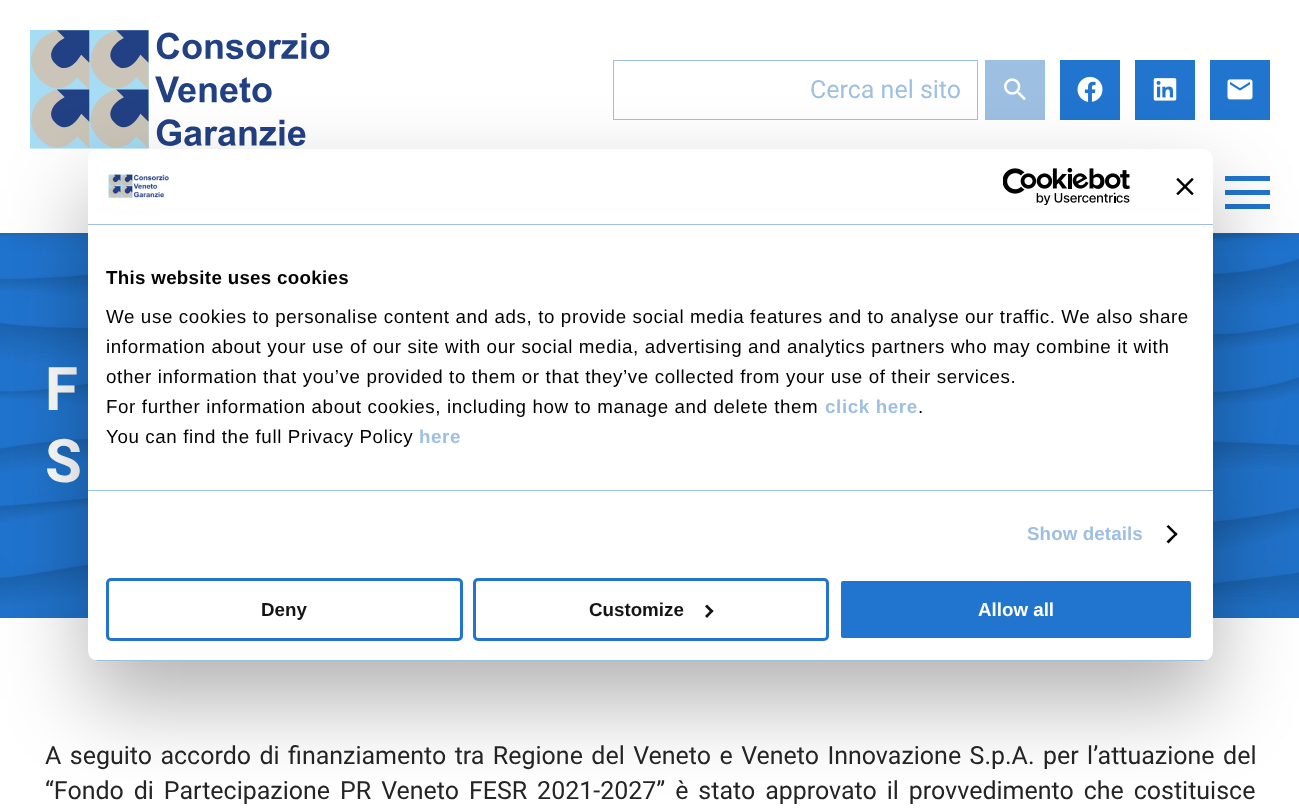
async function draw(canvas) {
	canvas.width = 1299;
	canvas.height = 809;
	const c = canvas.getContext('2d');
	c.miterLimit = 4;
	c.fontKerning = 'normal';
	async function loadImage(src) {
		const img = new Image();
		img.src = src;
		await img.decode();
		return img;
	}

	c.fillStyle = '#fff';
	c.fillRect(0, 0, 1299, 809);
	c.drawImage(await loadImage('img1.png'), 30, 30, 300, 119);
	c.strokeStyle = '#9dbfe2';
	c.strokeRect(613.5, 60.5, 364, 59);
	c.font = '25px Roboto';
	c.fillStyle = '#9dbfe2';
	c.fillText('Cerca nel sito', 810, 98);
	c.fillRect(985, 60, 60, 60);
	c.drawImage(await loadImage('img2.png'), 1004, 78, 22, 23);
	c.fillStyle = '#2175cf';
	c.fillRect(1060, 60, 60, 60);
	c.drawImage(await loadImage('img3.png'), 1077, 76, 26, 26);
	c.fillRect(1135, 60, 60, 60);
	c.drawImage(await loadImage('img4.png'), 1153, 78, 24, 23);
	c.fillRect(1210, 60, 60, 60);
	c.drawImage(await loadImage('img5.png'), 1227, 79, 26, 21);
	c.drawImage(await loadImage('img6.png'), 0, 233, 1299, 385);
	c.save();
	c.beginPath();
	c.moveTo(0, 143);
	c.lineTo(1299, 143);
	c.lineTo(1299, 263);
	c.lineTo(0, 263);
	c.closePath();
	c.moveTo(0, 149);
	c.lineTo(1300, 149);
	c.lineTo(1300, 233);
	c.lineTo(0, 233);
	c.closePath();
	c.clip('evenodd');
	c.fillStyle = '#0000001a';
	c.filter = 'blur(9px)';
	c.beginPath();
	c.rect(10, 171, 1280, 64);
	c.fill();
	c.filter = 'none';
	c.restore();
	for (const [x, y, w, h, color] of [
		[7, 232, 1286, 1, '#ffffffe6'],
		[1225, 176, 45, 5, '#2175cf'],
		[1225, 190, 45, 5, '#2175cf'],
		[1225, 204, 45, 5, '#2175cf'],
	]) {
		c.fillStyle = color;
		c.fillRect(x, y, w, h);
	}
	c.font = 'bold 60px Roboto';
	c.fillStyle = '#fff';
	c.fillText('F', 45, 410);
	c.fillText('S', 45, 482);
	c.fillStyle = '#0000004d';
	c.filter = 'blur(42.5px)';
	c.beginPath();
	c.roundRect(88, 189, 1125, 512, 10);
	c.fill();
	c.filter = 'none';
	c.fillStyle = '#fff';
	c.beginPath();
	c.roundRect(88, 149, 1125, 512, 10);
	c.fill();
	c.fillStyle = '#9cbfe2';
	c.fillRect(88, 224, 1125, 1);
	c.drawImage(await loadImage('img7.png'), 108, 174, 61, 24);
	c.drawImage(await loadImage('img8.png'), 1003, 168, 127, 37);
	c.drawImage(await loadImage('img9.png'), 1176, 178, 18, 17);
	c.fillRect(88, 490, 1125, 1);
	c.letterSpacing = '0.3px';
	c.font = 'bold 18.75px Liberation Sans';
	c.fillStyle = '#000';
	c.fillText('This website uses cookies', 106, 284);
	c.letterSpacing = '0.62px';
	c.font = '18.75px Liberation Sans';
	for (const [text, x, y] of [
		['We use cookies to personalise content and ads, to provide social media features and to analyse our traffic. We also share', 106, 323],
		['information about your use of our site with our social media, advertising and analytics partners who may combine it with', 106, 353],
		['other information that you’ve provided to them or that they’ve collected from your use of their services.', 106, 383],
		['For further information about cookies, including how to manage and delete them', 106, 413],
	]) {
		c.fillText(text, x, y);
	}
	c.font = 'bold 18.75px Liberation Sans';
	c.fillStyle = '#9dbfe2';
	c.fillText('click here', 825, 413);
	c.font = '18.75px Liberation Sans';
	c.fillStyle = '#000';
	c.fillText('.', 918, 413);
	c.fillText('You can find the full Privacy Policy', 106, 443);
	c.font = 'bold 18.75px Liberation Sans';
	c.fillStyle = '#9dbfe2';
	c.fillText('here', 419, 443);
	c.letterSpacing = '0.1px';
	c.fillText('Show details', 1027, 540);
	c.fillStyle = '#000';
	c.beginPath();
	c.moveTo(1168.5, 525);
	c.lineTo(1177.5, 534);
	c.lineTo(1176, 536);
	c.lineTo(1166.5, 526.5);
	c.closePath();
	c.fill();
	c.beginPath();
	c.moveTo(1176, 532.5);
	c.lineTo(1177.5, 534);
	c.lineTo(1168.5, 543.5);
	c.lineTo(1166.5, 541.5);
	c.closePath();
	c.fill();
	c.save();
	c.beginPath();
	c.roundRect(88, 149, 1125, 512, 10);
	c.clip();
	c.fillStyle = '#9cbfe2';
	c.fillRect(88, 660, 1125, 1);
	c.restore();
	c.beginPath();
	c.roundRect(107.5, 579.5, 354, 60, 3.5);
	c.strokeStyle = '#2175cf';
	c.lineWidth = 3;
	c.stroke();
	c.letterSpacing = '0px';
	c.fillStyle = '#141414';
	c.fillText('Deny', 261, 616);
	c.beginPath();
	c.roundRect(474.5, 579.5, 353, 60, 3.5);
	c.stroke();
	c.fillText('Customize', 589, 616);
	c.beginPath();
	c.moveTo(707, 604.5);
	c.lineTo(713.5, 611);
	c.lineTo(711.5, 613);
	c.lineTo(705, 606.5);
	c.closePath();
	c.fill();
	c.beginPath();
	c.moveTo(711.5, 609.5);
	c.lineTo(713.5, 611);
	c.lineTo(707, 618);
	c.lineTo(705, 616);
	c.closePath();
	c.fill();
	c.fillStyle = '#2175cf';
	c.beginPath();
	c.roundRect(839.5, 579.5, 353, 60, 3.5);
	c.fill();
	c.strokeStyle = '#fff';
	c.stroke();
	c.fillStyle = '#fff';
	c.fillText('Allow all', 978, 616);
	c.wordSpacing = '2.25px';
	c.font = '25px Roboto';
	c.fillStyle = '#242424';
	c.fillText('A seguito accordo di finanziamento tra Regione del Veneto e Veneto Innovazione S.p.A. per l’attuazione del', 45, 764);
	c.wordSpacing = '3.75px';
	c.fillText('“Fondo di Partecipazione PR Veneto FESR 2021-2027” è stato approvato il provvedimento che costituisce', 45, 799);
}

draw(document.querySelector('canvas'));
